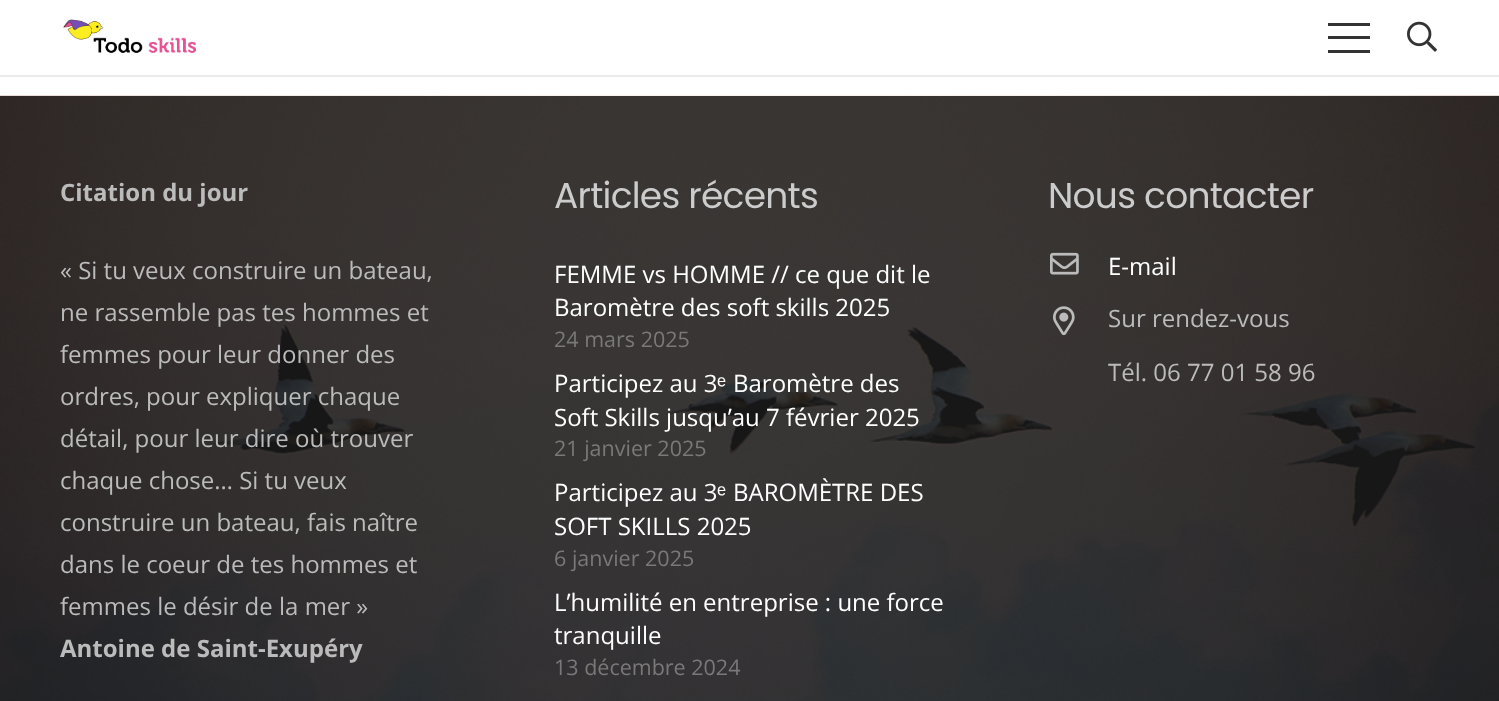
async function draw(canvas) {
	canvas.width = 1499;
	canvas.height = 701;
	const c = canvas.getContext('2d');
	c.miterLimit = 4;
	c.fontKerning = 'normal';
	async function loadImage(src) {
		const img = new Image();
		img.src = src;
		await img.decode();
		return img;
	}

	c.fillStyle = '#fff';
	c.fillRect(0, 0, 1499, 701);
	c.fillStyle = '#ebebeb';
	c.fillRect(0, 75, 1499, 2);
	c.drawImage(await loadImage('img1.png'), 63, 19, 134, 34);
	for (const [x, y, w, h, color] of [
		[1328, 36, 42, 3, '#333'],
		[1328, 23, 42, 3, '#333'],
		[1328, 50, 42, 3, '#333'],
	]) {
		c.fillStyle = color;
		c.fillRect(x, y, w, h);
	}
	c.drawImage(await loadImage('img2.png'), 1407, 21, 30, 31);
	c.drawImage(await loadImage('img3.png'), 0, 95, 1499, 606);
	c.font = 'bold 24px Open Sans';
	c.fillStyle = '#bbb';
	c.fillText('Citation du jour', 60, 201);
	c.font = '24px Open Sans';
	for (const [text, x, y] of [
		['« Si tu veux construire un bateau,', 60, 279],
		['ne rassemble pas tes hommes et', 60, 321],
		['femmes pour leur donner des', 60, 363],
		['ordres, pour expliquer chaque', 60, 405],
		['détail, pour leur dire où trouver', 60, 447],
		['chaque chose… Si tu veux', 60, 489],
		['construire un bateau, fais naître', 60, 531],
		['dans le coeur de tes hommes et', 60, 573],
		['femmes le désir de la mer »', 60, 615],
	]) {
		c.fillText(text, x, y);
	}
	c.font = 'bold 24px Open Sans';
	c.fillText('Antoine de Saint-Exupéry', 60, 657);
	c.letterSpacing = '-0.75px';
	c.font = '36px Poppins';
	c.fillStyle = '#ccc';
	c.fillText('Articles récents', 554, 208);
	c.letterSpacing = '0px';
	c.font = '24px Open Sans';
	c.fillStyle = '#fff';
	c.fillText('FEMME vs HOMME // ce que dit le', 554, 283);
	c.fillText('Baromètre des soft skills 2025', 554, 316);
	c.font = '21.5px Open Sans';
	c.fillStyle = '#7a7878';
	c.fillText('24 mars 2025', 554, 347);
	c.font = '24px Open Sans';
	c.fillStyle = '#fff';
	c.fillText('Participez au 3', 554, 392);
	c.font = '24px Liberation Sans';
	c.fillText('ᵉ', 717, 392);
	c.font = '24px Open Sans';
	c.fillText('Baromètre des', 733, 392);
	c.fillText('Soft Skills jusqu’au 7 février 2025', 554, 426);
	c.font = '21.5px Open Sans';
	c.fillStyle = '#7a7878';
	c.fillText('21 janvier 2025', 554, 456);
	c.font = '24px Open Sans';
	c.fillStyle = '#fff';
	c.fillText('Participez au 3', 554, 501);
	c.font = '24px Liberation Sans';
	c.fillText('ᵉ', 717, 501);
	c.font = '24px Open Sans';
	c.fillText('BAROMÈTRE DES', 733, 501);
	c.fillText('SOFT SKILLS 2025', 554, 535);
	c.font = '21.5px Open Sans';
	c.fillStyle = '#7a7878';
	c.fillText('6 janvier 2025', 554, 566);
	c.font = '24px Open Sans';
	c.fillStyle = '#fff';
	c.fillText('L’humilité en entreprise : une force', 554, 611);
	c.fillText('tranquille', 554, 644);
	c.font = '21.5px Open Sans';
	c.fillStyle = '#7a7878';
	c.fillText('13 décembre 2024', 554, 675);
	c.letterSpacing = '-0.75px';
	c.font = '36px Poppins';
	c.fillStyle = '#ccc';
	c.fillText('Nous contacter', 1048, 208);
	c.drawImage(await loadImage('img4.png'), 1050, 252, 29, 23);
	c.letterSpacing = '0px';
	c.font = '24px Open Sans';
	c.fillStyle = '#fff';
	c.fillText('E-mail', 1108, 275);
	c.drawImage(await loadImage('img5.png'), 1053, 306, 22, 30);
	c.fillStyle = '#bbb';
	c.fillText('Sur rendez-vous', 1108, 327);
	c.fillText('Tél. 06 77 01 58 96', 1108, 381);
}

draw(document.querySelector('canvas'));
